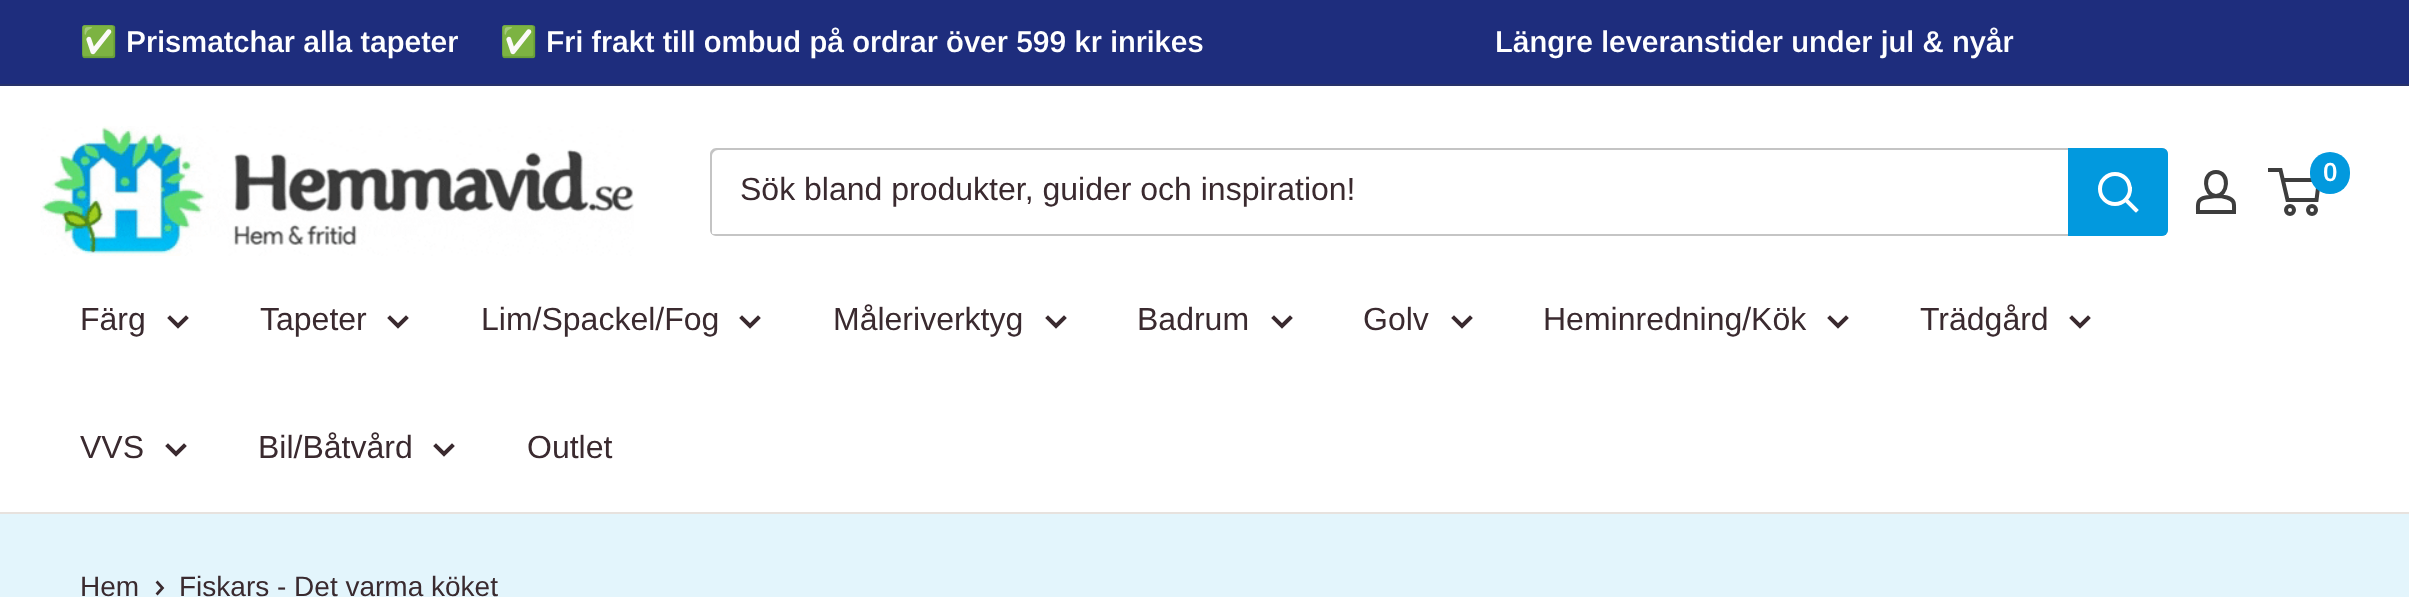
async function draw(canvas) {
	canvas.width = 2409;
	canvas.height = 597;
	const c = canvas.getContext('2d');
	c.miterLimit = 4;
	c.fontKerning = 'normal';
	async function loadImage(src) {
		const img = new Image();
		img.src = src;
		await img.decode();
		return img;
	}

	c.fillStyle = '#e3f5fc';
	c.fillRect(0, 0, 2409, 597);
	c.fillStyle = '#1e2d7d';
	c.fillRect(0, 0, 2409, 84);
	c.fillStyle = '#27326a';
	c.fillRect(0, 84, 2409, 2);
	c.font = 'bold 30px Noto Color Emoji';
	c.fillStyle = '#fff';
	c.fillText('✅', 80, 52);
	c.font = '600 30px Arimo';
	c.fillText('Prismatchar alla tapeter', 126, 52);
	c.font = 'bold 30px Noto Color Emoji';
	c.fillText('✅', 500, 52);
	c.font = '600 30px Arimo';
	c.fillText('Fri frakt till ombud på ordrar över 599 kr inrikes', 546, 52);
	c.fillText('Längre leveranstider under jul & nyår', 1495, 52);
	c.fillRect(0, 86, 2409, 426);
	c.drawImage(await loadImage('img1.png'), 40, 126, 594, 130);
	c.beginPath();
	c.moveTo(2216, 196);
	c.bezierCurveTo(2220, 196, 2223.5, 196.5, 2227, 197.5);
	c.bezierCurveTo(2235.5, 200, 2234, 204.5, 2234, 212);
	c.lineTo(2198, 212);
	c.bezierCurveTo(2198, 204, 2196.5, 199.5, 2205.5, 197.5);
	c.closePath();
	c.moveTo(2216, 196);
	c.bezierCurveTo(2204, 196, 2201.5, 172, 2216, 172);
	c.bezierCurveTo(2230.5, 172, 2228, 196, 2216, 196);
	c.closePath();
	c.strokeStyle = '#3d3d3d';
	c.lineWidth = 4;
	c.stroke();
	c.beginPath();
	c.arc(2290, 210, 4, 0, 2 * Math.PI);
	c.stroke();
	c.beginPath();
	c.arc(2312, 210, 4, 0, 2 * Math.PI);
	c.stroke();
	c.beginPath();
	c.moveTo(2282.5, 180);
	c.lineTo(2319, 180);
	c.lineTo(2316.5, 200);
	c.lineTo(2287.5, 200);
	c.lineTo(2280.5, 170);
	c.lineTo(2268, 170);
	c.stroke();
	c.fillStyle = '#0299de';
	c.beginPath();
	c.roundRect(2310, 152, 40, 42, 20);
	c.fill();
	c.font = '600 26px Arimo';
	c.fillStyle = '#fff';
	c.fillText('0', 2323, 181);
	c.fillStyle = '#c5c5c5';
	c.beginPath();
	c.moveTo(711, 233);
	c.bezierCurveTo(712, 235, 714, 236, 716, 236);
	c.lineTo(2162, 236);
	c.bezierCurveTo(2165, 236, 2168, 233, 2168, 230);
	c.lineTo(2168, 154);
	c.bezierCurveTo(2168, 152, 2167, 150, 2165, 149);
	c.bezierCurveTo(2166, 150, 2166, 151, 2166, 152);
	c.lineTo(2166, 228);
	c.bezierCurveTo(2166, 231, 2163, 234, 2160, 234);
	c.lineTo(714, 234);
	c.bezierCurveTo(713, 234, 712, 234, 711, 233);
	c.closePath();
	c.fill();
	c.fillStyle = '#3d3d3d4d';
	c.beginPath();
	c.moveTo(718, 150);
	c.lineTo(2164, 150);
	c.lineTo(2167, 151);
	c.bezierCurveTo(2166, 149, 2164, 148, 2162, 148);
	c.lineTo(716, 148);
	c.bezierCurveTo(713, 148, 710, 151, 710, 154);
	c.lineTo(710, 230);
	c.bezierCurveTo(710, 232, 711, 234, 713, 235);
	c.bezierCurveTo(712, 234, 712, 233, 712, 232);
	c.lineTo(712, 156);
	c.bezierCurveTo(712, 153, 715, 150, 718, 150);
	c.closePath();
	c.fill();
	c.font = '32px Arimo';
	c.fillStyle = '#3a2a2f';
	c.fillText('Sök bland produkter, guider och inspiration!', 740, 200);
	c.fillStyle = '#0299de';
	c.beginPath();
	c.roundRect(2068, 148, 100, 88, [0, 6, 6, 0]);
	c.fill();
	c.beginPath();
	c.moveTo(2136, 210);
	c.lineTo(2126, 200);
	c.strokeStyle = '#fff';
	c.lineCap = 'square';
	c.stroke();
	c.beginPath();
	c.arc(2115, 189, 15, 0, 2 * Math.PI);
	c.stroke();
	c.fillStyle = '#e7e2de';
	c.fillRect(0, 512, 2409, 2);
	c.fillStyle = '#3a2a2f';
	c.fillText('Färg', 80, 330);
	c.beginPath();
	c.moveTo(186, 318);
	c.lineTo(178, 326);
	c.lineTo(170, 318);
	c.strokeStyle = '#3a2a2f';
	c.stroke();
	c.fillText('Tapeter', 260, 330);
	c.beginPath();
	c.moveTo(406, 318);
	c.lineTo(398, 326);
	c.lineTo(390, 318);
	c.stroke();
	c.fillText('Lim/Spackel/Fog', 481, 330);
	c.beginPath();
	c.moveTo(758, 318);
	c.lineTo(750, 326);
	c.lineTo(742, 318);
	c.stroke();
	c.fillText('Måleriverktyg', 833, 330);
	c.beginPath();
	c.moveTo(1064, 318);
	c.lineTo(1056, 326);
	c.lineTo(1048, 318);
	c.stroke();
	c.fillText('Badrum', 1137, 330);
	c.beginPath();
	c.moveTo(1290, 318);
	c.lineTo(1282, 326);
	c.lineTo(1274, 318);
	c.stroke();
	c.fillText('Golv', 1363, 330);
	c.beginPath();
	c.moveTo(1470, 318);
	c.lineTo(1462, 326);
	c.lineTo(1454, 318);
	c.stroke();
	c.fillText('Heminredning/Kök', 1543, 330);
	c.beginPath();
	c.moveTo(1846, 318);
	c.lineTo(1838, 326);
	c.lineTo(1830, 318);
	c.stroke();
	c.fillText('Trädgård', 1920, 330);
	c.beginPath();
	c.moveTo(2088, 318);
	c.lineTo(2080, 326);
	c.lineTo(2072, 318);
	c.stroke();
	c.fillText('VVS', 80, 458);
	c.beginPath();
	c.moveTo(184, 446);
	c.lineTo(176, 454);
	c.lineTo(168, 446);
	c.stroke();
	c.fillText('Bil/Båtvård', 258, 458);
	c.beginPath();
	c.moveTo(452, 446);
	c.lineTo(444, 454);
	c.lineTo(436, 446);
	c.stroke();
	c.fillText('Outlet', 527, 458);
	c.font = '28px Arimo';
	c.fillText('Hem', 80, 596);
	c.beginPath();
	c.moveTo(157.5, 582.5);
	c.lineTo(162.5, 588);
	c.lineTo(157.5, 593.5);
	c.lineWidth = 2.7;
	c.stroke();
	c.fillText('Fiskars - Det varma köket', 179, 596);
}

draw(document.querySelector('canvas'));
